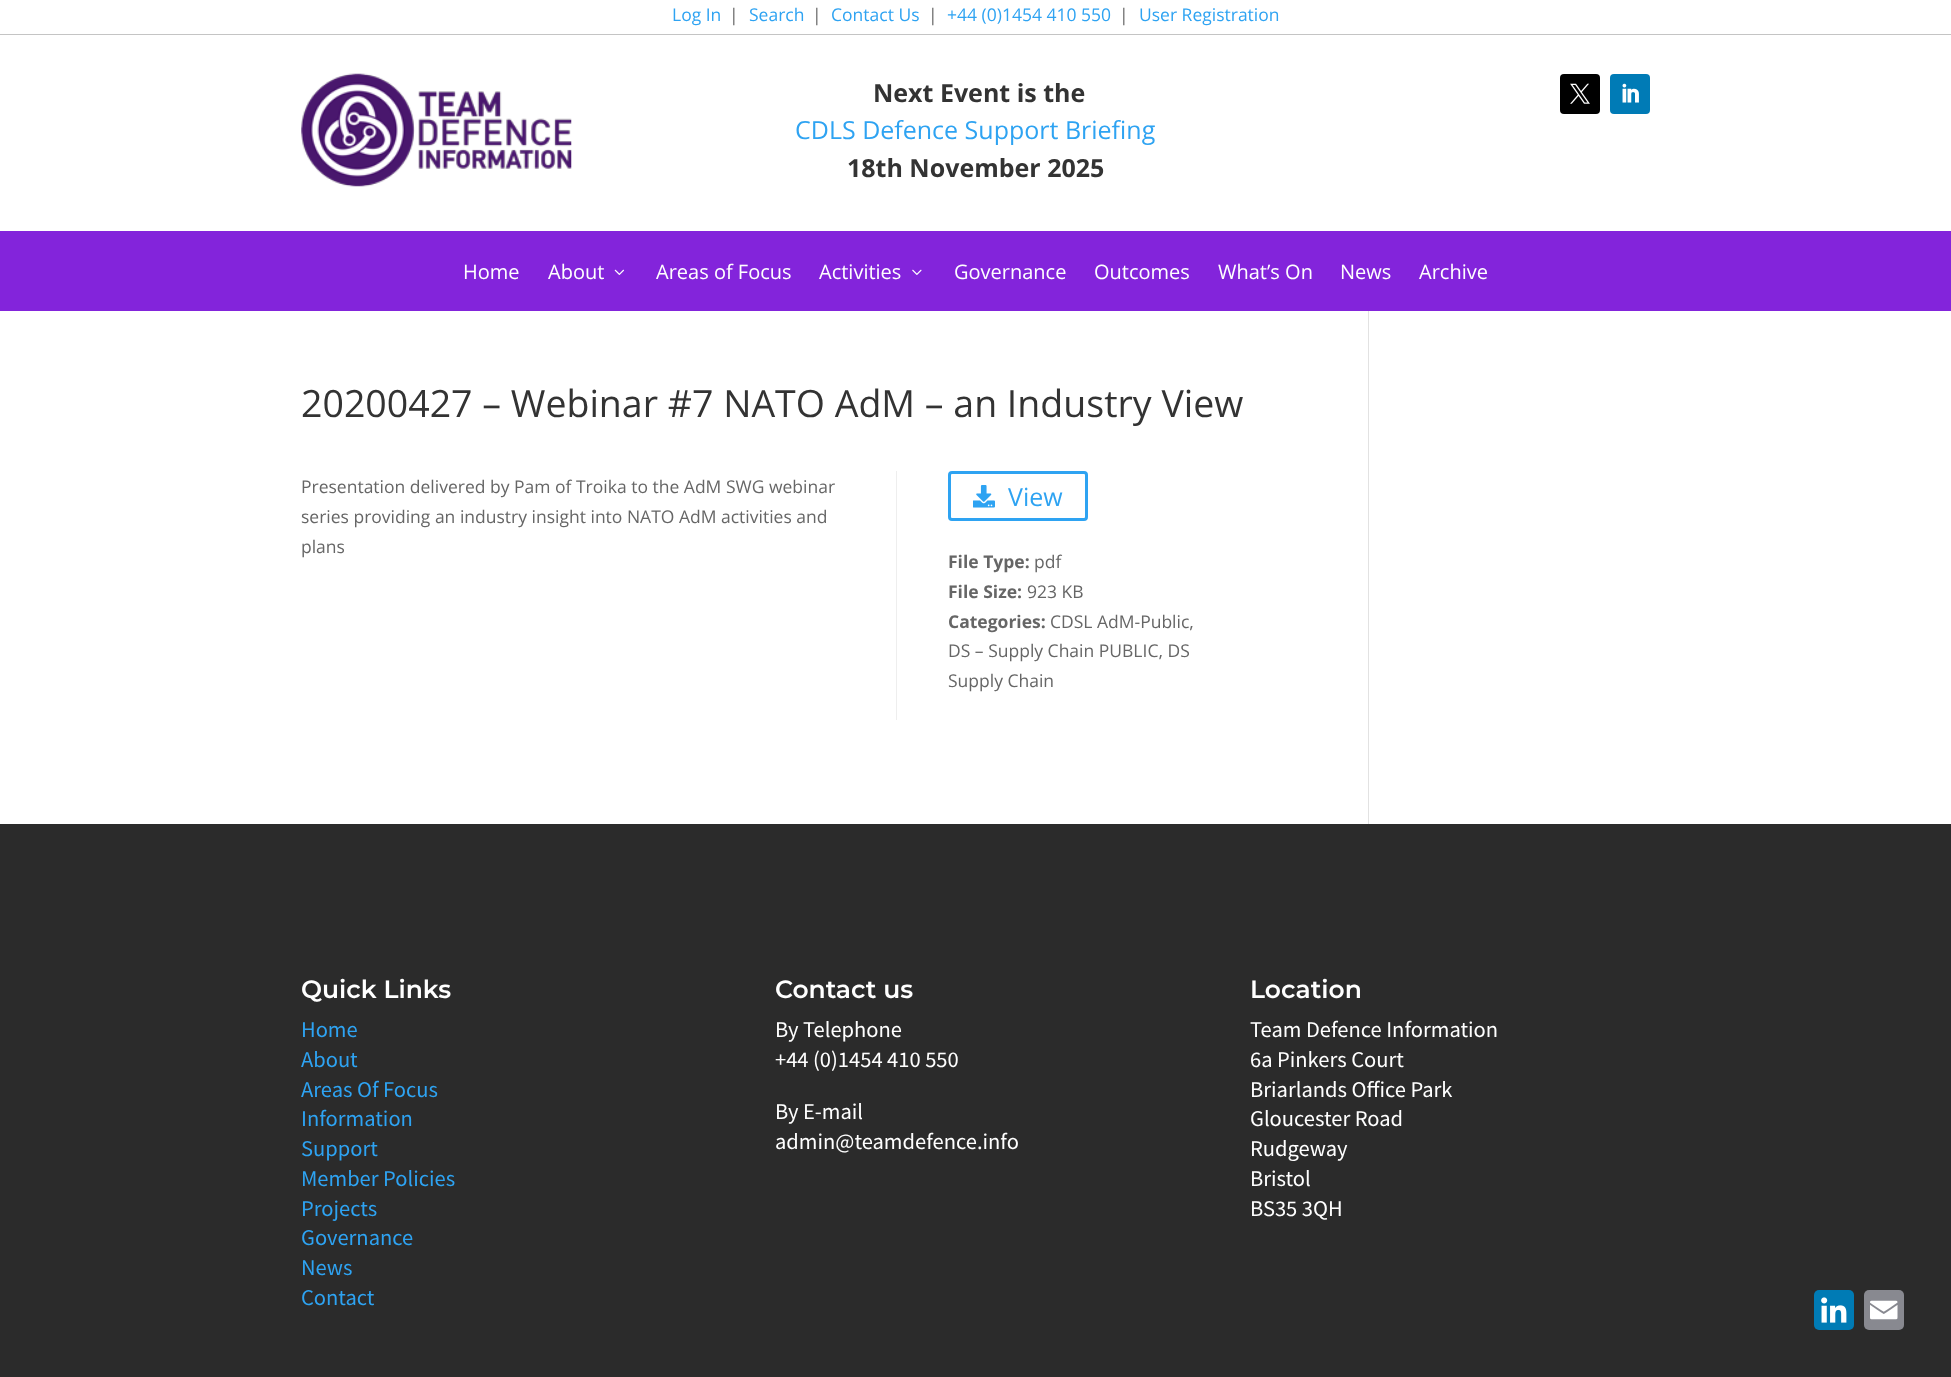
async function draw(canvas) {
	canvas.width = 1951;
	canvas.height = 1377;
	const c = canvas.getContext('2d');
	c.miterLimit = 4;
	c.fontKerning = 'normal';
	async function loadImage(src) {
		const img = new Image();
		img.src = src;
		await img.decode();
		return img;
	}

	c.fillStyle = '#fff';
	c.fillRect(0, 0, 1951, 1377);
	c.fillStyle = '#c4c4c4';
	c.fillRect(0, 34, 1951, 1);
	c.font = '17.5px Open Sans';
	c.fillStyle = '#2ea3f2';
	c.fillText('Log In', 672, 21);
	c.fillStyle = '#666';
	c.fillText('|', 729, 21);
	c.fillStyle = '#2ea3f2';
	c.fillText('Search', 749, 21);
	c.fillStyle = '#666';
	c.fillText('|', 812, 21);
	c.fillStyle = '#2ea3f2';
	c.fillText('Contact Us', 831, 21);
	c.fillStyle = '#666';
	c.fillText('|', 928, 21);
	c.fillStyle = '#2ea3f2';
	c.fillText('+44 (0)1454 410 550', 947, 21);
	c.fillStyle = '#666';
	c.fillText('|', 1119, 21);
	c.fillStyle = '#2ea3f2';
	c.fillText('User Registration', 1139, 21);
	c.drawImage(await loadImage('img1.png'), 301, 73, 271, 114);
	c.font = 'bold 25px Open Sans';
	c.fillStyle = '#333';
	c.fillText('Next Event is the', 873, 102);
	c.font = '25px Open Sans';
	c.fillStyle = '#2ea3f2';
	c.fillText('CDLS Defence Support Briefing', 795, 139);
	c.font = 'bold 25px Open Sans';
	c.fillStyle = '#333';
	c.fillText('18th November 2025', 847, 177);
	c.fillStyle = '#000';
	c.beginPath();
	c.roundRect(1560, 74, 40, 40, 4);
	c.fill();
	c.drawImage(await loadImage('img2.png'), 1570, 83, 20, 21);
	c.fillStyle = '#007bb6';
	c.beginPath();
	c.roundRect(1610, 74, 40, 40, 4);
	c.fill();
	c.drawImage(await loadImage('img3.png'), 1622, 83, 17, 20);
	c.fillStyle = '#8324db';
	c.fillRect(0, 231, 1951, 80);
	c.font = '20px Open Sans';
	c.fillStyle = '#fff';
	c.fillText('Home', 463, 279);
	c.fillText('About', 548, 279);
	c.drawImage(await loadImage('img4.png'), 614, 269, 10, 6);
	c.fillText('Areas of Focus', 656, 279);
	c.fillText('Activities', 819, 279);
	c.drawImage(await loadImage('img5.png'), 912, 269, 10, 6);
	for (const [text, x, y] of [
		['Governance', 954, 279],
		['Outcomes', 1094, 279],
		['What’s On', 1218, 279],
		['News', 1340, 279],
		['Archive', 1419, 279],
	]) {
		c.fillText(text, x, y);
	}
	c.font = '37.5px Open Sans';
	c.fillStyle = '#333';
	c.fillText('20200427 – Webinar #7 NATO AdM – an Industry View', 301, 417);
	c.font = '17.5px Open Sans';
	c.fillStyle = '#666';
	for (const [text, x, y] of [
		['Presentation delivered by Pam of Troika to the AdM SWG webinar', 301, 493],
		['series providing an industry insight into NATO AdM activities and', 301, 523],
		['plans', 301, 553],
	]) {
		c.fillText(text, x, y);
	}
	c.fillStyle = '#eee';
	c.fillRect(896, 471, 1, 249);
	c.beginPath();
	c.roundRect(949.5, 472.5, 137, 47, 2.5);
	c.strokeStyle = '#2ea3f2';
	c.lineWidth = 3;
	c.stroke();
	c.drawImage(await loadImage('img6.png'), 973, 485, 22, 23);
	c.font = '25px Open Sans';
	c.fillStyle = '#2ea3f2';
	c.fillText('View', 1008, 506);
	c.font = 'bold 17.5px Open Sans';
	c.fillStyle = '#666';
	c.fillText('File Type:', 948, 568);
	c.font = '17.5px Open Sans';
	c.fillText('pdf', 1034, 568);
	c.font = 'bold 17.5px Open Sans';
	c.fillText('File Size:', 948, 598);
	c.font = '17.5px Open Sans';
	c.fillText('923 KB', 1027, 598);
	c.font = 'bold 17.5px Open Sans';
	c.fillText('Categories:', 948, 628);
	c.font = '17.5px Open Sans';
	for (const [text, x, y] of [
		['CDSL AdM-Public,', 1050, 628],
		['DS – Supply Chain PUBLIC, DS', 948, 657],
		['Supply Chain', 948, 687],
	]) {
		c.fillText(text, x, y);
	}
	c.fillStyle = '#e2e2e2';
	c.fillRect(1368, 311, 1, 513);
	c.fillStyle = '#2b2b2b';
	c.fillRect(0, 824, 1951, 553);
	c.font = '100 25px Montserrat';
	c.fillStyle = '#fff';
	c.fillText('Quick Links', 301, 998);
	c.font = '22.5px Source Sans Pro';
	c.fillStyle = '#2ea3f2';
	for (const [text, x, y] of [
		['Home', 301, 1037],
		['About', 301, 1067],
		['Areas Of Focus', 301, 1097],
		['Information', 301, 1126],
		['Support', 301, 1156],
		['Member Policies', 301, 1186],
		['Projects', 301, 1216],
		['Governance', 301, 1245],
		['News', 301, 1275],
		['Contact', 301, 1305],
	]) {
		c.fillText(text, x, y);
	}
	c.font = '100 25px Montserrat';
	c.fillStyle = '#fff';
	c.fillText('Contact us', 775, 998);
	c.font = '22.5px Source Sans Pro';
	for (const [text, x, y] of [
		['By Telephone', 775, 1037],
		['+44 (0)1454 410 550', 775, 1067],
		['By E-mail', 775, 1119],
		['admin@teamdefence.info', 775, 1149],
	]) {
		c.fillText(text, x, y);
	}
	c.font = '100 25px Montserrat';
	c.fillText('Location', 1250, 998);
	c.font = '22.5px Source Sans Pro';
	for (const [text, x, y] of [
		['Team Defence Information', 1250, 1037],
		['6a Pinkers Court', 1250, 1067],
		['Briarlands Office Park', 1250, 1097],
		['Gloucester Road', 1250, 1126],
		['Rudgeway', 1250, 1156],
		['Bristol', 1250, 1186],
		['BS35 3QH', 1250, 1216],
	]) {
		c.fillText(text, x, y);
	}
	c.fillStyle = '#007bb5';
	c.beginPath();
	c.roundRect(1814, 1290, 40, 40, 5);
	c.fill();
	c.drawImage(await loadImage('img7.png'), 1821, 1297, 26, 26);
	c.fillStyle = '#888990';
	c.beginPath();
	c.roundRect(1864, 1290, 40, 40, 5);
	c.fill();
	c.drawImage(await loadImage('img8.png'), 1870, 1300, 28, 20);
}

draw(document.querySelector('canvas'));
